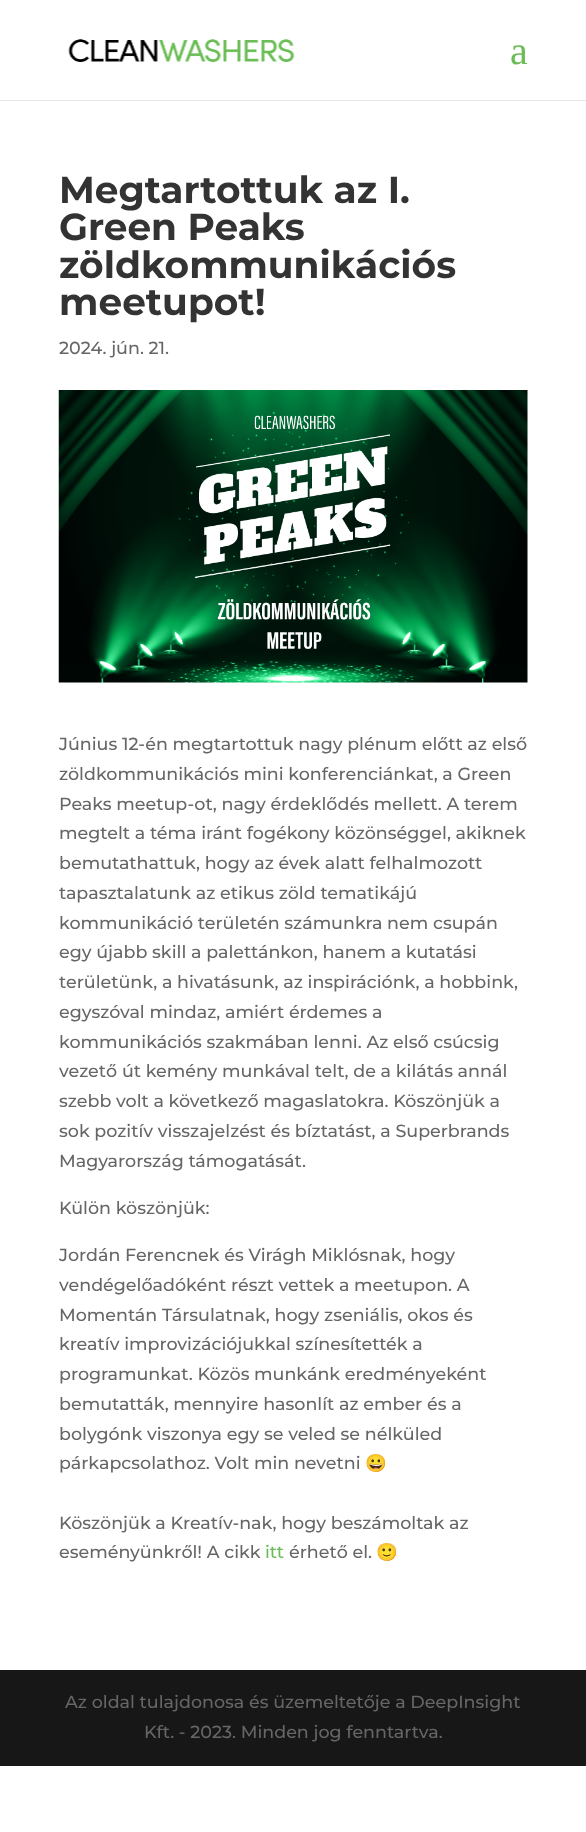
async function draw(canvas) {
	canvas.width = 586;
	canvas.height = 1832;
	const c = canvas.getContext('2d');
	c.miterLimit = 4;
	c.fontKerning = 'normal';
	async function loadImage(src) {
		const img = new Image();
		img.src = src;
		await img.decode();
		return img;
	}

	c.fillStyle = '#fff';
	c.fillRect(0, 0, 586, 1832);
	c.fillStyle = '#e6e6e6';
	c.fillRect(0, 100, 586, 1);
	c.drawImage(await loadImage('img1.png'), 68, 39, 227, 23);
	c.font = '40px Liberation Serif';
	c.fillStyle = '#6bbc55';
	c.fillText('a', 510, 64);
	c.font = 'bold 37.5px Montserrat';
	c.fillStyle = '#333';
	for (const [text, x, y] of [
		['Megtartottuk az I.', 59, 203],
		['Green Peaks', 59, 240],
		['zöldkommunikációs', 59, 278],
		['meetupot!', 59, 315],
	]) {
		c.fillText(text, x, y);
	}
	c.font = '500 17.5px Montserrat';
	c.fillStyle = '#666';
	c.fillText('2024. jún. 21.', 59, 354);
	c.drawImage(await loadImage('img2.png'), 58, 390, 470, 293);
	for (const [text, x, y] of [
		['Június 12-én megtartottuk nagy plénum előtt az első', 59, 750],
		['zöldkommunikációs mini konferenciánkat, a Green', 59, 780],
		['Peaks meetup-ot, nagy érdeklődés mellett. A terem', 59, 810],
		['megtelt a téma iránt fogékony közönséggel, akiknek', 59, 839],
		['bemutathattuk, hogy az évek alatt felhalmozott', 59, 869],
		['tapasztalatunk az etikus zöld tematikájú', 59, 899],
		['kommunikáció területén számunkra nem csupán', 59, 929],
		['egy újabb skill a palettánkon, hanem a kutatási', 59, 958],
		['területünk, a hivatásunk, az inspirációnk, a hobbink,', 59, 988],
		['egyszóval mindaz, amiért érdemes a', 59, 1018],
		['kommunikációs szakmában lenni. Az első csúcsig', 59, 1048],
		['vezető út kemény munkával telt, de a kilátás annál', 59, 1077],
		['szebb volt a következő magaslatokra. Köszönjük a', 59, 1107],
		['sok pozitív visszajelzést és bíztatást, a Superbrands', 59, 1137],
		['Magyarország támogatását.', 59, 1167],
		['Külön köszönjük:', 59, 1214],
		['Jordán Ferencnek és Virágh Miklósnak, hogy', 59, 1261],
		['vendégelőadóként részt vettek a meetupon. A', 59, 1291],
		['Momentán Társulatnak, hogy zseniális, okos és', 59, 1321],
		['kreatív improvizációjukkal színesítették a', 59, 1350],
		['programunkat. Közös munkánk eredményeként', 59, 1380],
		['bemutatták, mennyire hasonlít az ember és a', 59, 1410],
		['bolygónk viszonya egy se veled se nélküled', 59, 1440],
		['párkapcsolathoz. Volt min nevetni', 59, 1469],
	]) {
		c.fillText(text, x, y);
	}
	c.font = '17.5px Noto Color Emoji';
	c.fillText('😀', 365, 1469);
	c.font = '500 17.5px Montserrat';
	c.fillText('Köszönjük a Kreatív-nak, hogy beszámoltak az', 59, 1529);
	c.fillText('eseményünkről! A cikk', 59, 1558);
	c.fillStyle = '#6bbc55';
	c.fillText('itt', 265, 1558);
	c.fillStyle = '#666';
	c.fillText('érhető el.', 289, 1558);
	c.font = '17.5px Noto Color Emoji';
	c.fillText('🙂', 376, 1558);
	c.fillStyle = '#171717';
	c.fillRect(0, 1670, 586, 96);
	c.font = '500 17.5px Montserrat';
	c.fillStyle = '#666';
	c.fillText('Az oldal tulajdonosa és üzemeltetője a DeepInsight', 65, 1708);
	c.fillText('Kft. - 2023. Minden jog fenntartva.', 144, 1738);
}

draw(document.querySelector('canvas'));
